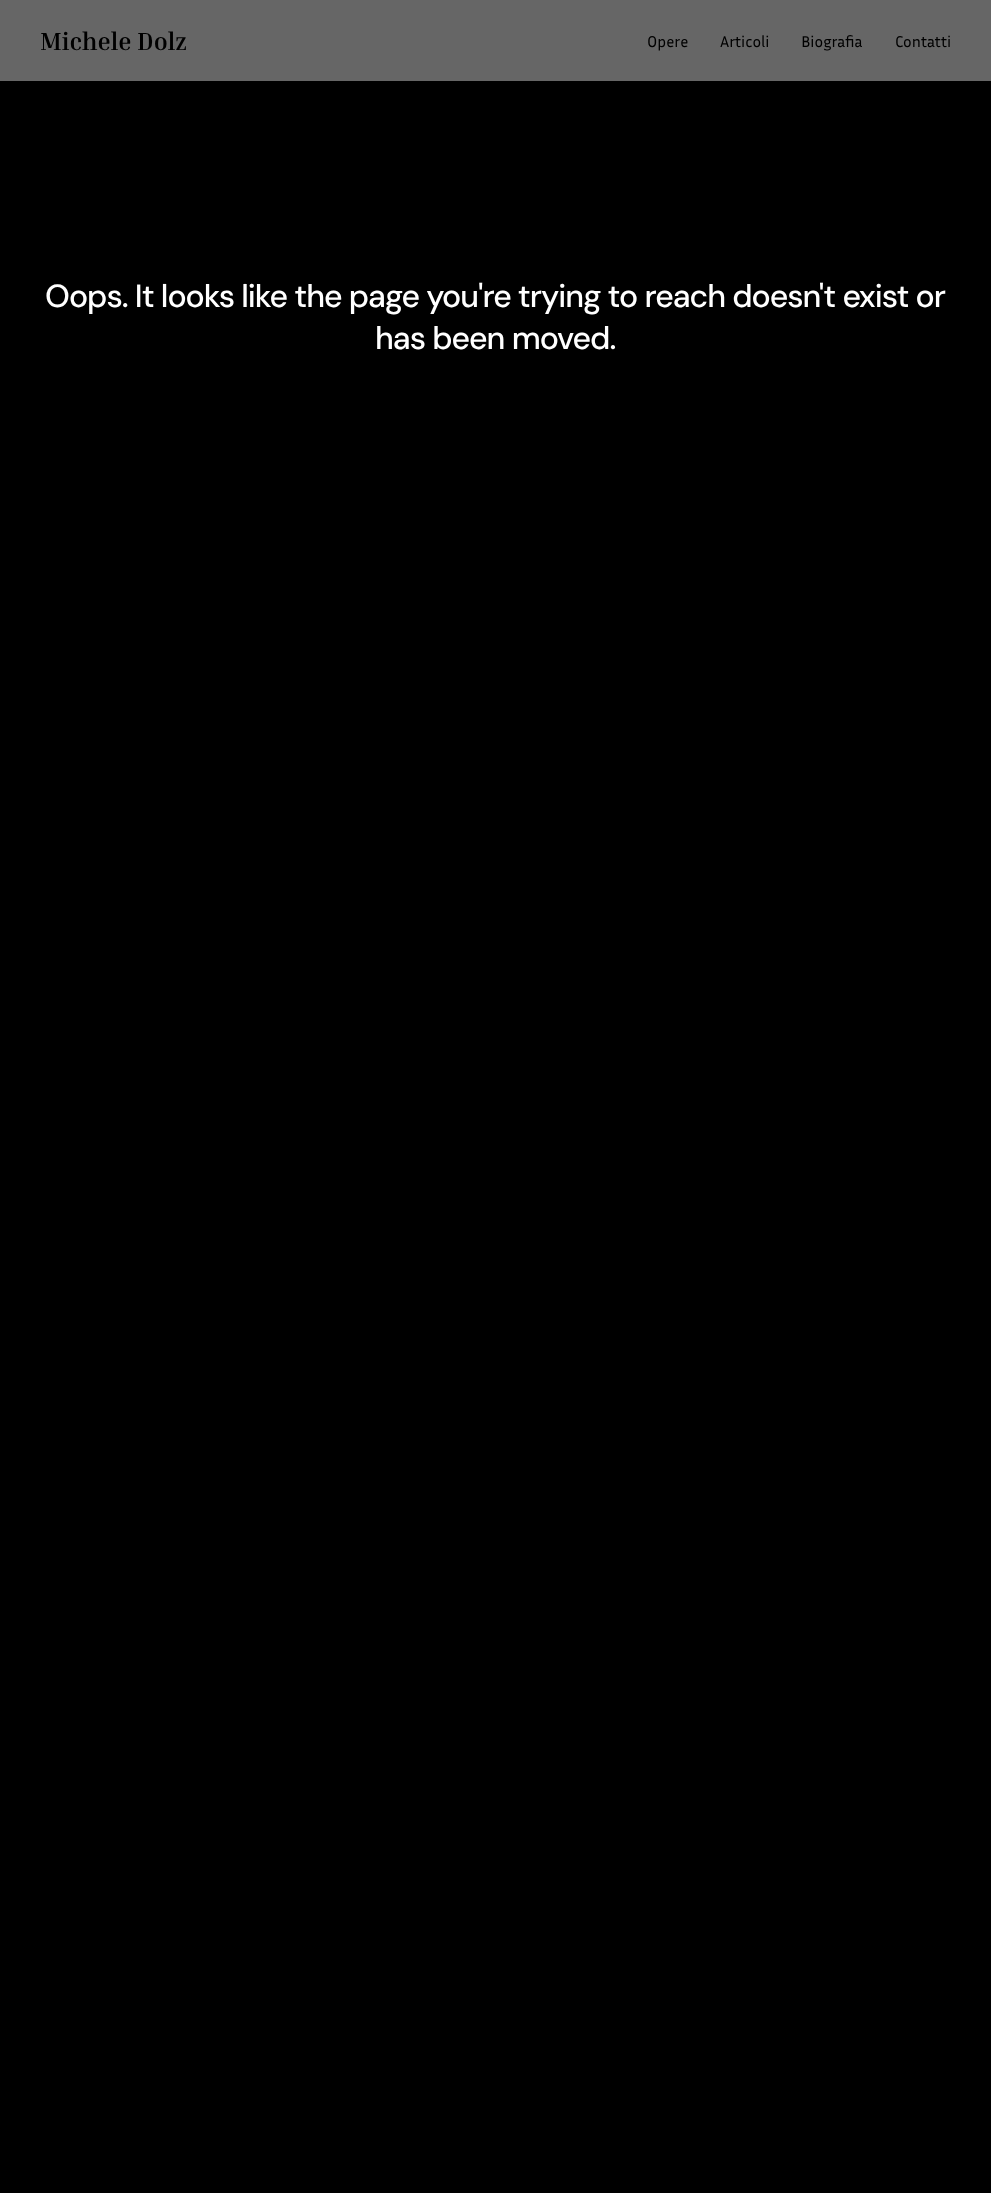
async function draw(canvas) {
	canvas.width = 991;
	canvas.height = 2193;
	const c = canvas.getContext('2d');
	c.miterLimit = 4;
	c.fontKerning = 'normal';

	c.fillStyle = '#000';
	c.fillRect(0, 0, 991, 2193);
	c.fillStyle = '#666';
	c.fillRect(0, 0, 991, 81);
	c.font = 'bold 25px Inria Serif';
	c.fillStyle = '#000';
	c.fillText('Michele Dolz', 40, 50);
	c.font = '16px Inria Sans';
	for (const [text, x, y] of [
		['Opere', 647, 47],
		['Articoli', 720, 47],
		['Biografia', 801, 47],
		['Contatti', 895, 47],
	]) {
		c.fillText(text, x, y);
	}
	c.letterSpacing = '-1px';
	c.font = '500 32px DM Sans';
	c.fillStyle = '#fff';
	c.fillText('Oops. It looks like the page you\'re trying to reach doesn\'t exist or', 45, 307);
	c.fillText('has been moved.', 375, 349);
}

draw(document.querySelector('canvas'));
